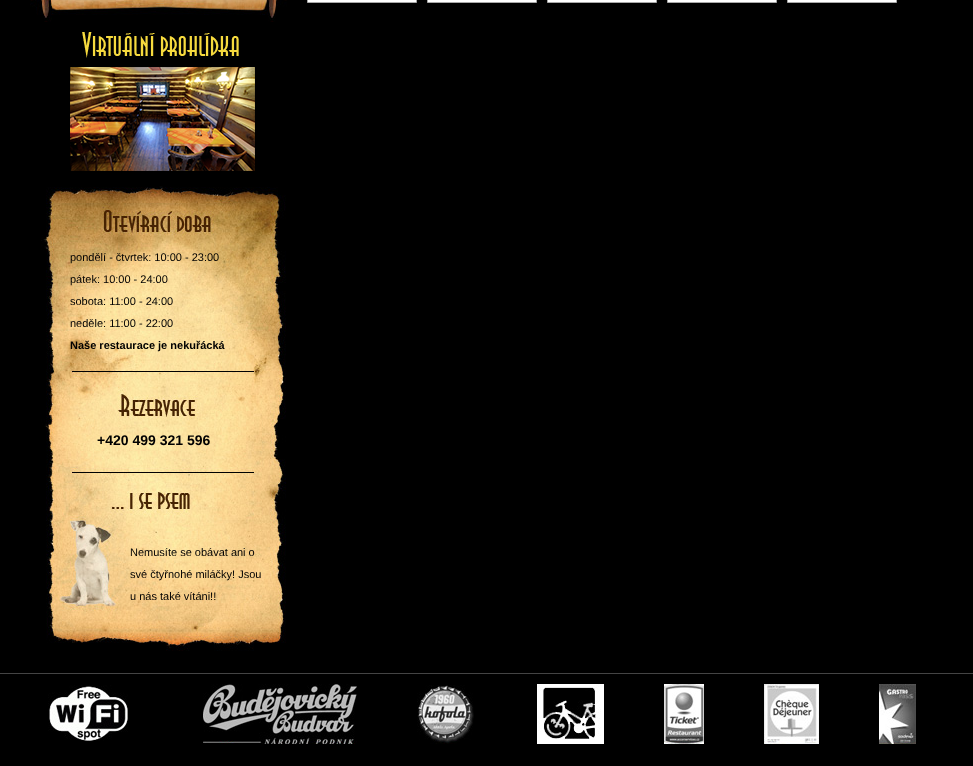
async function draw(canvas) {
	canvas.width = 973;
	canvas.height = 766;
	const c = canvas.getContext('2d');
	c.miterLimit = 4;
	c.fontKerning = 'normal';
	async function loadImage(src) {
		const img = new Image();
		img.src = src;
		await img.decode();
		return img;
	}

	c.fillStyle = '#000';
	c.fillRect(0, 0, 973, 766);
	c.fillStyle = '#fff';
	c.beginPath();
	c.rect(307.5, -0.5, 109, 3);
	c.fill();
	c.strokeStyle = '#a9a9a9';
	c.stroke();
	c.beginPath();
	c.rect(427.5, -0.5, 109, 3);
	c.fill();
	c.stroke();
	c.beginPath();
	c.rect(547.5, -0.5, 109, 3);
	c.fill();
	c.stroke();
	c.beginPath();
	c.rect(667.5, -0.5, 109, 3);
	c.fill();
	c.stroke();
	c.beginPath();
	c.rect(787.5, -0.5, 109, 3);
	c.fill();
	c.stroke();
	c.drawImage(await loadImage('img1.png'), 30, 0, 257, 22);
	c.drawImage(await loadImage('img2.png'), 82, 32, 157, 26);
	c.drawImage(await loadImage('img3.png'), 70, 67, 185, 104);
	c.drawImage(await loadImage('img4.png'), 41, 186, 245, 465);
	c.font = '11px Liberation Sans';
	c.fillStyle = '#000';
	for (const [text, x, y] of [
		['pondělí - čtvrtek: 10:00 - 23:00', 70, 261],
		['pátek: 10:00 - 24:00', 70, 283],
		['sobota: 11:00 - 24:00', 70, 305],
		['neděle: 11:00 - 22:00', 70, 327],
	]) {
		c.fillText(text, x, y);
	}
	c.font = 'bold 11px Liberation Sans';
	c.fillText('Naše restaurace je nekuřácká', 70, 349);
	c.font = 'bold 14px Liberation Sans';
	c.fillText('+420 499 321 596', 97, 445);
	c.font = '11px Liberation Sans';
	for (const [text, x, y] of [
		['Nemusíte se obávat ani o', 130, 556],
		['své čtyřnohé miláčky! Jsou', 130, 578],
		['u nás také vítáni!!', 130, 600],
	]) {
		c.fillText(text, x, y);
	}
	c.fillStyle = '#444';
	c.fillRect(0, 673, 973, 1);
	c.drawImage(await loadImage('img5.png'), 48, 685, 80, 56);
	c.drawImage(await loadImage('img6.png'), 203, 684, 154, 60);
	c.drawImage(await loadImage('img7.png'), 417, 685, 57, 59);
	c.drawImage(await loadImage('img8.png'), 537, 684, 67, 60);
	c.drawImage(await loadImage('img9.png'), 664, 684, 40, 60);
	c.drawImage(await loadImage('img10.png'), 764, 684, 55, 60);
	c.drawImage(await loadImage('img11.png'), 879, 684, 37, 60);
}

draw(document.querySelector('canvas'));
